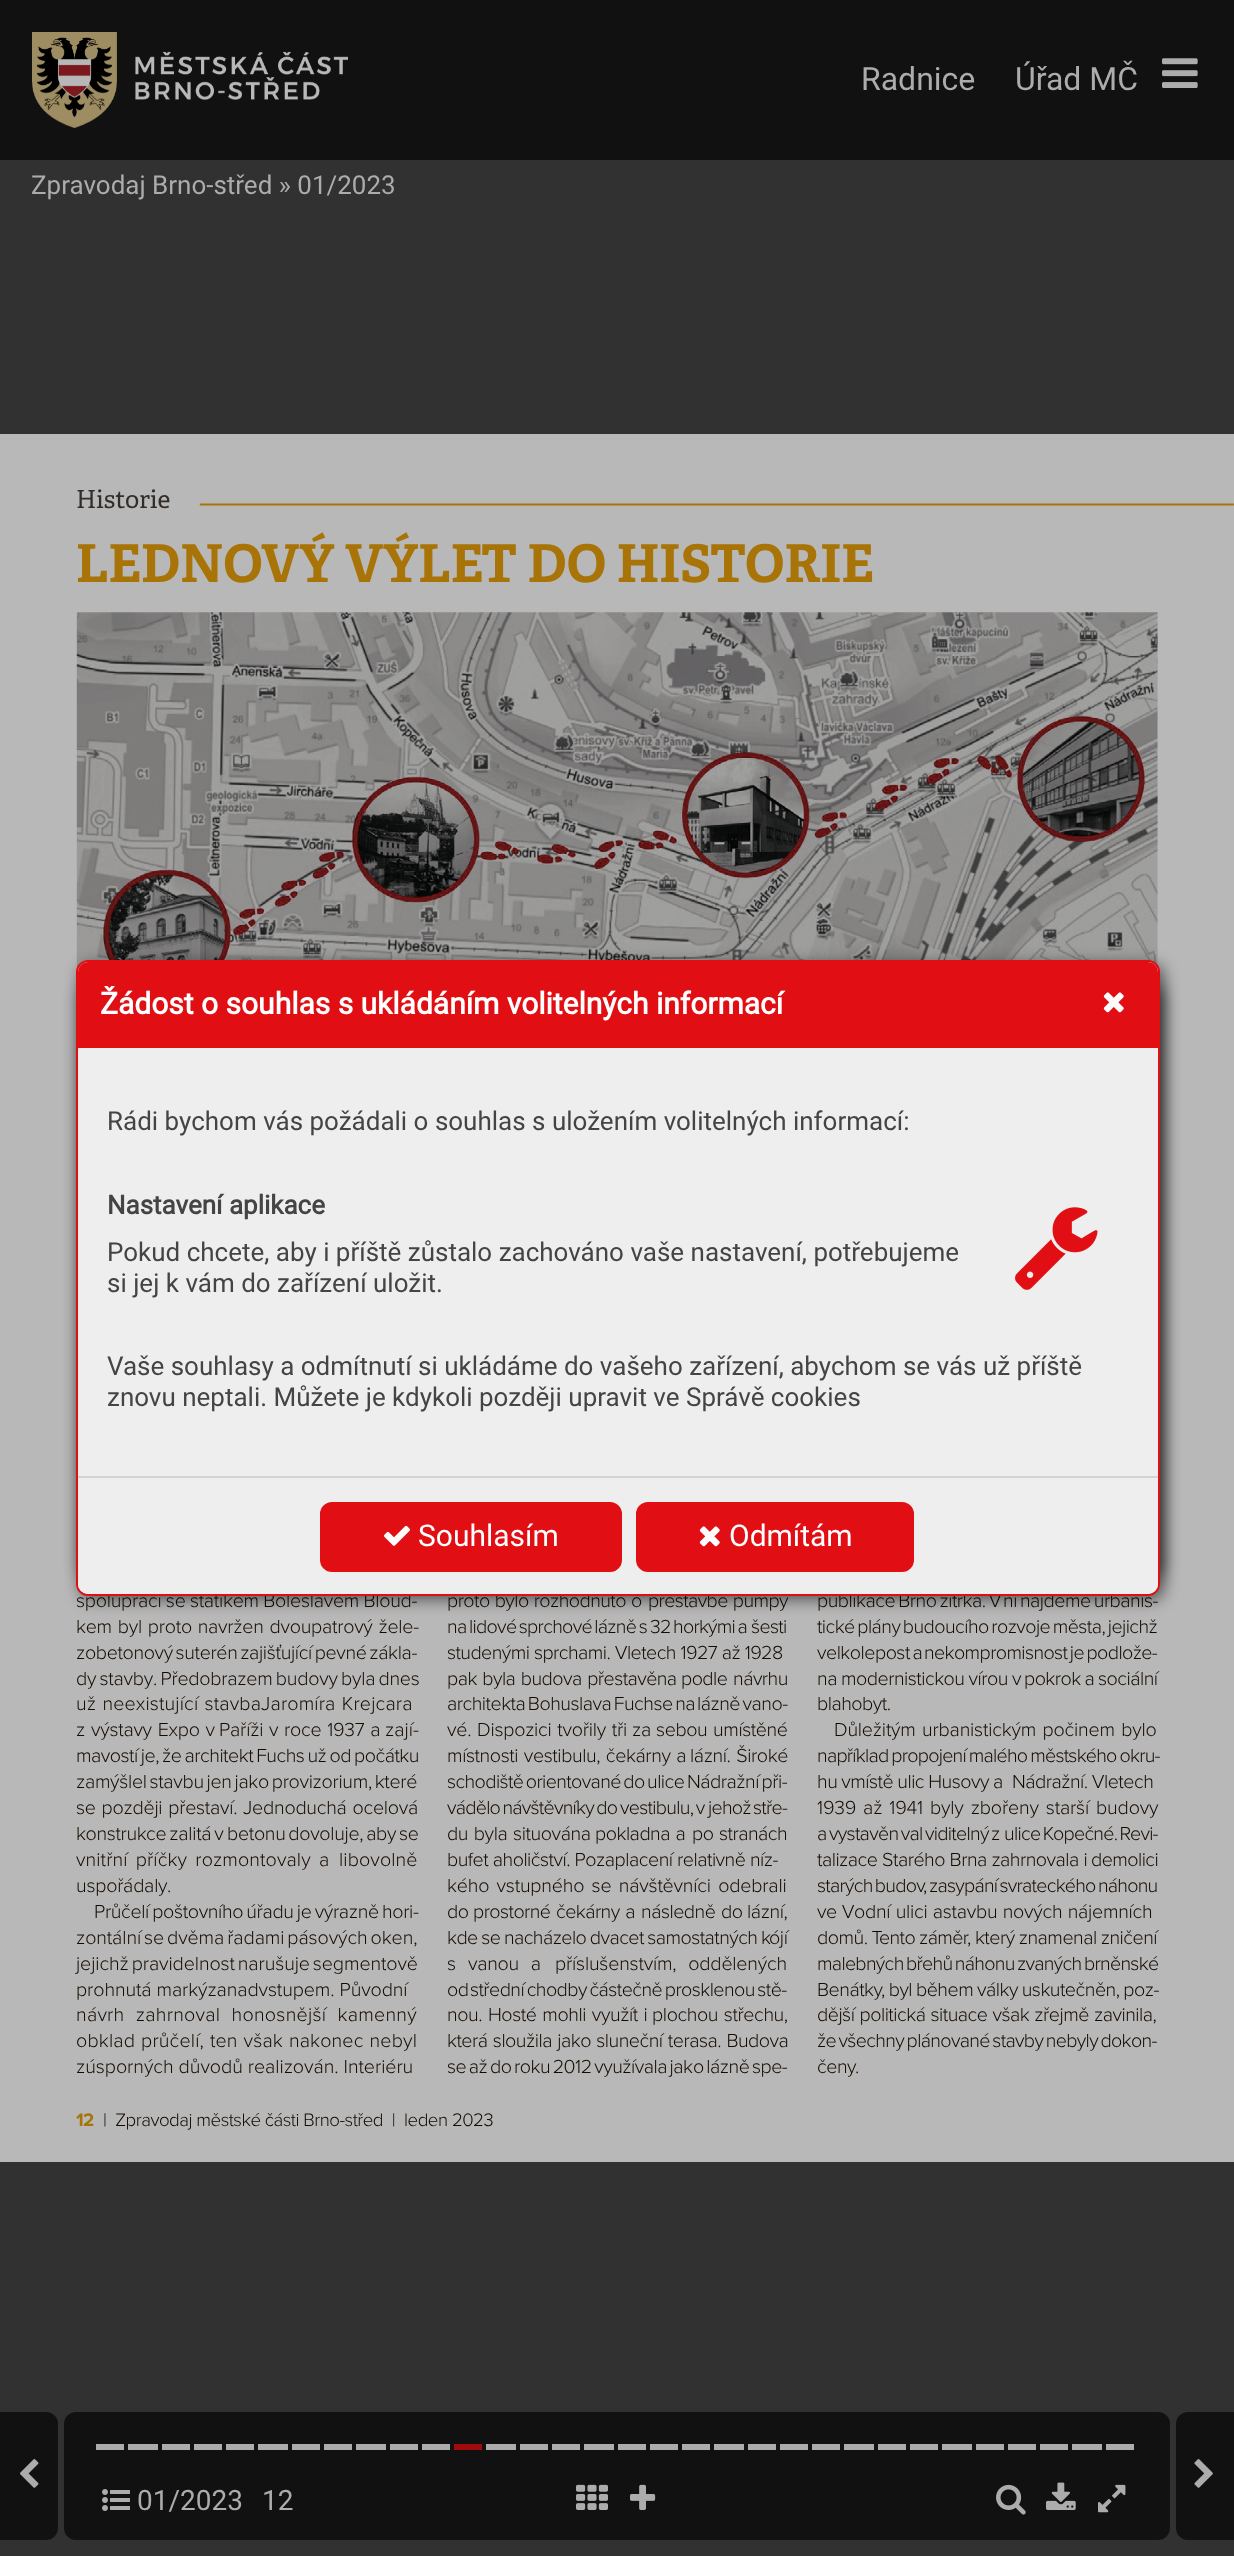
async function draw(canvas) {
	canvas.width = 1234;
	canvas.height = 2556;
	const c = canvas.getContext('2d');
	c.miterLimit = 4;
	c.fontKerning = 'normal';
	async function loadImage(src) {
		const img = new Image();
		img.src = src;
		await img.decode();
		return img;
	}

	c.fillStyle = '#313131';
	c.fillRect(0, 0, 1234, 2556);
	c.fillStyle = '#111';
	c.fillRect(0, 0, 1234, 160);
	c.drawImage(await loadImage('img1.png'), 32, 32, 316, 96);
	c.font = '32px Roboto';
	c.fillStyle = '#acacac';
	c.fillText('Radnice', 861, 90);
	c.fillText('Úřad MČ', 1015, 90);
	c.drawImage(await loadImage('img2.png'), 1162, 58, 36, 30);
	c.font = '26px Roboto';
	c.fillText('Zpravodaj Brno-střed » 01/2023', 31, 194);
	c.fillStyle = '#111';
	c.beginPath();
	c.roundRect(0, 2412, 58, 128, [0, 12, 12, 0]);
	c.fill();
	c.drawImage(await loadImage('img3.png'), 20, 2459, 19, 29);
	c.beginPath();
	c.roundRect(64, 2412, 1106, 128, 12);
	c.fill();
	for (const [x, y, w, h, color] of [
		[96, 2444, 28, 6, '#acacac'],
		[128, 2444, 30, 6, '#acacac'],
		[162, 2444, 28, 6, '#acacac'],
		[194, 2444, 28, 6, '#acacac'],
		[226, 2444, 28, 6, '#acacac'],
		[258, 2444, 30, 6, '#acacac'],
		[292, 2444, 28, 6, '#acacac'],
		[324, 2444, 28, 6, '#acacac'],
		[356, 2444, 30, 6, '#acacac'],
		[390, 2444, 28, 6, '#acacac'],
		[422, 2444, 28, 6, '#acacac'],
		[486, 2444, 30, 6, '#acacac'],
		[520, 2444, 28, 6, '#acacac'],
		[552, 2444, 28, 6, '#acacac'],
		[584, 2444, 30, 6, '#acacac'],
		[618, 2444, 28, 6, '#acacac'],
		[650, 2444, 28, 6, '#acacac'],
		[682, 2444, 28, 6, '#acacac'],
		[714, 2444, 30, 6, '#acacac'],
		[748, 2444, 28, 6, '#acacac'],
		[780, 2444, 28, 6, '#acacac'],
		[812, 2444, 28, 6, '#acacac'],
		[844, 2444, 30, 6, '#acacac'],
		[878, 2444, 28, 6, '#acacac'],
		[910, 2444, 28, 6, '#acacac'],
		[942, 2444, 30, 6, '#acacac'],
		[976, 2444, 28, 6, '#acacac'],
		[1008, 2444, 28, 6, '#acacac'],
		[1040, 2444, 28, 6, '#acacac'],
		[1072, 2444, 30, 6, '#acacac'],
		[1106, 2444, 28, 6, '#acacac'],
		[454, 2444, 28, 6, '#a20b0e'],
	]) {
		c.fillStyle = color;
		c.fillRect(x, y, w, h);
	}
	c.drawImage(await loadImage('img4.png'), 102, 2489, 28, 22);
	c.font = '28px Roboto';
	c.fillStyle = '#acacac';
	c.fillText('01/2023', 137, 2510);
	c.fillText('12', 262, 2510);
	c.drawImage(await loadImage('img5.png'), 576, 2484, 32, 26);
	c.drawImage(await loadImage('img6.png'), 630, 2484, 26, 26);
	c.drawImage(await loadImage('img7.png'), 996, 2484, 30, 31);
	c.drawImage(await loadImage('img8.png'), 1046, 2482, 30, 28);
	c.drawImage(await loadImage('img9.png'), 1098, 2484, 28, 29);
	c.fillStyle = '#111';
	c.beginPath();
	c.roundRect(1176, 2412, 58, 128, [12, 0, 0, 12]);
	c.fill();
	c.drawImage(await loadImage('img10.png'), 1194, 2459, 19, 29);
	c.fillStyle = '#b8b8b8';
	c.fillRect(0, 434, 1234, 1728);
	c.drawImage(await loadImage('img11.png'), 76, 503, 1158, 469);
	c.font = '25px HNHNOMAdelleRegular';
	c.fillStyle = '#322d28';
	c.fillText('Hist', 76, 508);
	c.fillText('orie', 125, 508);
	c.font = 'bold 52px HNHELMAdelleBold';
	c.fillStyle = '#a87408';
	for (const [text, x, y] of [
		['LEDNO', 76, 582],
		['VÝ VÝLE', 261, 582],
		['T DO HIS', 481, 582],
		['T', 710, 582],
		['ORIE', 745, 582],
	]) {
		c.fillText(text, x, y);
	}
	c.letterSpacing = '-0.25px';
	c.wordSpacing = '-0.5px';
	c.font = '300 19.7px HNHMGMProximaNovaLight';
	c.fillStyle = '#140a00';
	c.fillText('spolupráci se statikem Boleslavem Bloud-', 76, 1607);
	c.letterSpacing = '-0.55px';
	c.wordSpacing = '0.5px';
	c.fillText('proto bylo rozhodnuto o', 447, 1607);
	c.letterSpacing = '-0.6px';
	c.fillText('přestavbě pumpy', 648, 1607);
	c.letterSpacing = '-0.5px';
	c.wordSpacing = '-1.5px';
	c.fillText('publikace Brno zítřka. V', 817, 1607);
	c.fillText('ní najdeme urbanis-', 1003, 1607);
	c.letterSpacing = '-0.25px';
	c.wordSpacing = '1px';
	c.fillText('kem byl proto navržen dvoupatrový žele-', 76, 1633);
	c.letterSpacing = '-0.75px';
	c.wordSpacing = '0px';
	c.fillText('na', 447, 1633);
	c.letterSpacing = '-0.7px';
	c.wordSpacing = '-2px';
	c.fillText('lidové sprchové lázně s', 469, 1633);
	c.letterSpacing = '-0.75px';
	c.fillText('32 horkými a', 650, 1633);
	c.letterSpacing = '-0.65px';
	c.wordSpacing = '0px';
	c.fillText('šesti', 751, 1633);
	c.letterSpacing = '-0.55px';
	c.wordSpacing = '-2px';
	c.fillText('tické plány budoucího rozvoje města, jejichž', 817, 1633);
	c.letterSpacing = '-0.35px';
	c.fillText('zobetonový suterén zajišťující pevné zákla-', 76, 1659);
	c.letterSpacing = '-0.55px';
	c.wordSpacing = '0px';
	c.fillText('studenými sprchami. Vletech 1927 až 1928', 447, 1659);
	c.letterSpacing = '-0.5px';
	c.wordSpacing = '-2px';
	c.fillText('velkolepost a', 817, 1659);
	c.letterSpacing = '-0.6px';
	c.fillText('nekompromisnost je podlože-', 924, 1659);
	c.letterSpacing = '-0.25px';
	c.wordSpacing = '-1.5px';
	c.fillText('dy stavby', 76, 1685);
	c.fillText('. Předobrazem budovy byla dnes', 153, 1685);
	c.letterSpacing = '-0.55px';
	c.wordSpacing = '1px';
	c.fillText('pak byla budova přestavěna', 447, 1685);
	c.wordSpacing = '0px';
	c.fillText('podle', 681, 1685);
	c.letterSpacing = '-0.5px';
	c.fillText('návrhu', 733, 1685);
	c.wordSpacing = '-0.5px';
	c.fillText('na modernistickou vírou v', 817, 1685);
	c.letterSpacing = '-0.55px';
	c.fillText('pokrok a', 1024, 1685);
	c.letterSpacing = '-0.5px';
	c.wordSpacing = '0px';
	c.fillText('sociální', 1098, 1685);
	c.letterSpacing = '0.15px';
	c.wordSpacing = '1px';
	c.fillText('už neexistující stavbaJaromíra Krejcara', 76, 1710);
	c.letterSpacing = '-0.5px';
	c.wordSpacing = '-2px';
	c.fillText('architekta Bohuslava Fuchse na', 447, 1710);
	c.fillText('lázně vano-', 697, 1710);
	c.wordSpacing = '0px';
	c.fillText('blahobyt.', 817, 1710);
	c.letterSpacing = '0px';
	c.fillText('z', 76, 1736);
	c.letterSpacing = '-0.25px';
	c.wordSpacing = '1px';
	c.fillText('výstavy Expo v', 91, 1736);
	c.letterSpacing = '-0.2px';
	c.fillText('Paříži v', 219, 1736);
	c.letterSpacing = '-0.25px';
	c.fillText('roce 1937 a', 284, 1736);
	c.letterSpacing = '0px';
	c.wordSpacing = '0px';
	c.fillText('zají-', 385, 1736);
	c.letterSpacing = '-0.25px';
	c.wordSpacing = '1px';
	c.fillText('vé. Dispozici tvořily tři', 447, 1736);
	c.letterSpacing = '-0.3px';
	c.wordSpacing = '0px';
	c.fillText('za', 632, 1736);
	c.letterSpacing = '-0.4px';
	c.wordSpacing = '1px';
	c.fillText('sebou umístěné', 656, 1736);
	c.letterSpacing = '-0.2px';
	c.wordSpacing = '1.5px';
	c.fillText('Důležitým urbanistickým počinem bylo', 834, 1736);
	c.letterSpacing = '-0.5px';
	c.wordSpacing = '-1.5px';
	c.fillText('mavostí je, že architekt Fuchs už od počátku', 76, 1762);
	c.letterSpacing = '-0.4px';
	c.wordSpacing = '1px';
	c.fillText('místnosti vestibulu, čekárny a', 447, 1762);
	c.fillText('lázní. Široké', 690, 1762);
	c.letterSpacing = '-0.75px';
	c.wordSpacing = '-1.5px';
	c.fillText('například propojení malého městského okru-', 817, 1762);
	c.letterSpacing = '-0.3px';
	c.wordSpacing = '-2px';
	c.fillText('zamýšlel stavbu jen jako provizorium, které', 76, 1788);
	c.letterSpacing = '-0.6px';
	c.fillText('schodiště orientované do', 447, 1788);
	c.letterSpacing = '-0.5px';
	c.fillText('ulice Nádražní při-', 647, 1788);
	c.wordSpacing = '-0.5px';
	c.fillText('hu vmístě ulic Husovy a', 817, 1788);
	c.fillText('Nádražní. Vletech', 1012, 1788);
	c.letterSpacing = '-0.25px';
	c.wordSpacing = '1px';
	c.fillText('se později přestaví. Jednoduchá ocelová', 76, 1814);
	c.letterSpacing = '-0.75px';
	c.wordSpacing = '-2px';
	c.fillText('vádělo návštěvníky do', 447, 1814);
	c.letterSpacing = '-0.7px';
	c.fillText('vestibulu, v', 620, 1814);
	c.letterSpacing = '-0.75px';
	c.fillText('jehož stře-', 708, 1814);
	c.letterSpacing = '-0.15px';
	c.wordSpacing = '2px';
	c.fillText('1939 až 1941 byly zbořeny starší budovy', 817, 1814);
	c.letterSpacing = '-0.35px';
	c.wordSpacing = '0px';
	c.fillText('konstruk', 76, 1840);
	c.letterSpacing = '-0.25px';
	c.wordSpacing = '-2px';
	c.fillText('ce zalitá v', 146, 1840);
	c.letterSpacing = '-0.3px';
	c.fillText('betonu dovoluje, aby se', 227, 1840);
	c.letterSpacing = '-0.4px';
	c.wordSpacing = '1px';
	c.fillText('du byla situována', 447, 1840);
	c.letterSpacing = '-0.5px';
	c.fillText('pokladna a', 595, 1840);
	c.wordSpacing = '0px';
	c.fillText('po', 692, 1840);
	c.fillText('stranách', 719, 1840);
	c.letterSpacing = '-0.75px';
	c.fillText('a', 817, 1840);
	c.letterSpacing = '-0.7px';
	c.wordSpacing = '-2px';
	c.fillText('vystavěn val viditelný z', 829, 1840);
	c.fillText('ulice K', 1004, 1840);
	c.letterSpacing = '-0.75px';
	c.fillText('opečné. R', 1053, 1840);
	c.wordSpacing = '0px';
	c.fillText('evi-', 1130, 1840);
	c.letterSpacing = '0.1px';
	c.wordSpacing = '3px';
	c.fillText('vnitřní příčky rozmontovaly a', 76, 1866);
	c.wordSpacing = '0px';
	c.fillText('libovolně', 339, 1866);
	c.letterSpacing = '-0.5px';
	c.fillText('bufet aholičství. Pozaplacení relativně níz-', 447, 1866);
	c.fillText('talizace Starého Brna zahrnovala i', 817, 1866);
	c.letterSpacing = '-0.55px';
	c.fillText('demolici', 1091, 1866);
	c.letterSpacing = '-0.25px';
	c.fillText('uspořádaly', 76, 1892);
	c.letterSpacing = '0px';
	c.fillText('.', 167, 1892);
	c.letterSpacing = '-0.2px';
	c.wordSpacing = '2.5px';
	c.fillText('kého vstupného se návštěvníci odebrali', 447, 1892);
	c.letterSpacing = '-0.75px';
	c.wordSpacing = '-2px';
	c.fillText('starých budov', 817, 1892);
	c.fillText(', zasypání svrateckého náhonu', 923, 1892);
	c.letterSpacing = '-0.35px';
	c.wordSpacing = '-1.5px';
	c.fillText('Průčelí poštovního úřadu je výrazně hori-', 94, 1918);
	c.letterSpacing = '-0.55px';
	c.wordSpacing = '0px';
	c.fillText('do', 447, 1918);
	c.wordSpacing = '1px';
	c.fillText('prostorné čekárny a', 473, 1918);
	c.letterSpacing = '-0.5px';
	c.fillText('následně do', 641, 1918);
	c.letterSpacing = '-0.4px';
	c.wordSpacing = '0px';
	c.fillText('lázní,', 747, 1918);
	c.letterSpacing = '-0.5px';
	c.wordSpacing = '0.5px';
	c.fillText('ve V', 817, 1918);
	c.letterSpacing = '-0.25px';
	c.fillText('odní ulici astavbu nových nájemních', 854, 1918);
	c.letterSpacing = '-0.1px';
	c.wordSpacing = '-2px';
	c.fillText('zontální se dvěma řadami pásových oken,', 76, 1944);
	c.letterSpacing = '-0.55px';
	c.wordSpacing = '-1px';
	c.fillText('kde se nacházelo dvacet samostatných k', 447, 1944);
	c.letterSpacing = '-0.4px';
	c.wordSpacing = '0px';
	c.fillText('ójí', 769, 1944);
	c.letterSpacing = '-0.5px';
	c.wordSpacing = '-0.5px';
	c.fillText('domů. T', 817, 1944);
	c.letterSpacing = '-0.6px';
	c.fillText('ento záměr', 879, 1944);
	c.letterSpacing = '-0.5px';
	c.fillText(', který znamenal zničení', 967, 1944);
	c.letterSpacing = '-0.1px';
	c.wordSpacing = '-2px';
	c.fillText('jejichž pravidelnost narušuje segmentově', 76, 1970);
	c.letterSpacing = '0px';
	c.wordSpacing = '0px';
	c.fillText('s', 447, 1970);
	c.letterSpacing = '-0.25px';
	c.wordSpacing = '7px';
	c.fillText('vanou a', 468, 1970);
	c.letterSpacing = '-0.2px';
	c.fillText('příslušenstvím, oddělených', 555, 1970);
	c.letterSpacing = '-0.7px';
	c.wordSpacing = '-2px';
	c.fillText('malebných břehů náhonu zvaných brněnské', 817, 1970);
	c.letterSpacing = '-0.1px';
	c.wordSpacing = '0px';
	c.fillText('prohnutá markýzanadvstupem. Původní', 76, 1996);
	c.letterSpacing = '-0.5px';
	c.fillText('od', 447, 1996);
	c.letterSpacing = '-0.55px';
	c.wordSpacing = '-2px';
	c.fillText('střední chodby částečně prosklenou stě-', 470, 1996);
	c.letterSpacing = '-0.5px';
	c.wordSpacing = '0px';
	c.fillText('Benátky', 817, 1996);
	c.wordSpacing = '-0.75px';
	c.fillText(', byl během války uskutečněn, poz-', 881, 1996);
	c.letterSpacing = '0.25px';
	c.wordSpacing = '6px';
	c.fillText('návrh zahrnoval honosnější kamenný', 76, 2021);
	c.letterSpacing = '-0.4px';
	c.wordSpacing = '1px';
	c.fillText('nou. Hosté mohli využít i', 447, 2021);
	c.fillText('plochou střechu,', 652, 2021);
	c.letterSpacing = '-0.5px';
	c.wordSpacing = '0.5px';
	c.fillText('dější politická situace však zřejmě zavinila,', 817, 2021);
	c.letterSpacing = '0.15px';
	c.wordSpacing = '0.75px';
	c.fillText('obklad průčelí, ten však nakonec nebyl', 76, 2047);
	c.letterSpacing = '-0.5px';
	c.fillText('která sloužila jako sluneční terasa. Budova', 447, 2047);
	c.letterSpacing = '-0.65px';
	c.wordSpacing = '-2px';
	c.fillText('že všechny plánované stavby nebyly dokon-', 817, 2047);
	c.letterSpacing = '-0.05px';
	c.wordSpacing = '0px';
	c.fillText('zúsporných důvodů realizován. Interiéru', 76, 2073);
	c.letterSpacing = '-0.5px';
	c.wordSpacing = '-2px';
	for (const [text, x, y] of [
		['se až do', 447, 2073],
		['roku 2012 využívala jak', 514, 2073],
		['o lázně spe-', 693, 2073],
	]) {
		c.fillText(text, x, y);
	}
	c.wordSpacing = '0px';
	c.fillText('čeny', 817, 2073);
	c.letterSpacing = '-0.25px';
	c.fillText('.', 855, 2073);
	c.letterSpacing = '-0.6px';
	c.font = 'bold 18.7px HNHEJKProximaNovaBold';
	c.fillStyle = '#a87408';
	c.fillText('12', 76, 2126);
	c.letterSpacing = '-0.5px';
	c.font = '300 18.7px HNHMGMProximaNovaLight';
	c.fillStyle = '#140a00';
	c.fillText('| Zpravodaj městské části Brno-střed | leden 2023', 103, 2126);
	c.fillStyle = '#00000087';
	c.filter = 'blur(7.5px)';
	c.beginPath();
	c.roundRect(80, 986, 1084, 592, 12);
	c.fill();
	c.filter = 'none';
	c.filter = 'blur(7.5px)';
	c.beginPath();
	c.roundRect(80, 964, 1084, 636, 12);
	c.fill();
	c.filter = 'none';
	c.fillStyle = '#eee';
	c.beginPath();
	c.roundRect(77, 961, 1082, 634, 11);
	c.fill();
	c.strokeStyle = '#e10f13';
	c.lineWidth = 2;
	c.stroke();
	c.fillStyle = '#e10f13';
	c.beginPath();
	c.roundRect(78, 962, 1080, 86, [10, 10, 0, 0]);
	c.fill();
	c.letterSpacing = '0px';
	c.font = 'bold 30px Roboto';
	c.fillStyle = '#fff';
	c.fillText('Žádost o souhlas s ukládáním volitelných informací', 100, 1014);
	c.drawImage(await loadImage('img12.png'), 1103, 992, 21, 21);
	c.font = '26px Roboto';
	c.fillStyle = '#444';
	c.fillText('Rádi bychom vás požádali o souhlas s uložením volitelných informací:', 107, 1130);
	c.font = 'bold 26px Roboto';
	c.fillText('Nastavení aplikace', 107, 1214);
	c.drawImage(await loadImage('img13.png'), 1015, 1207, 83, 83);
	c.font = '26px Roboto';
	for (const [text, x, y] of [
		['Pokud chcete, aby i příště zůstalo zachováno vaše nastavení, potřebujeme', 107, 1261],
		['si jej k vám do zařízení uložit.', 107, 1292],
		['Vaše souhlasy a odmítnutí si ukládáme do vašeho zařízení, abychom se vás už příště', 107, 1375],
		['znovu neptali. Můžete je kdykoli později upravit ve Správě cookies', 107, 1406],
	]) {
		c.fillText(text, x, y);
	}
	c.fillStyle = '#eee';
	c.beginPath();
	c.roundRect(78, 1476, 1080, 118, [0, 0, 10, 10]);
	c.fill();
	c.fillStyle = '#d3d3d3';
	c.fillRect(78, 1476, 1080, 2);
	c.fillStyle = '#e10f13';
	c.beginPath();
	c.roundRect(321, 1503, 300, 68, 11);
	c.fill();
	c.stroke();
	c.drawImage(await loadImage('img14.png'), 384, 1525, 26, 21);
	c.font = '30px Roboto';
	c.fillStyle = '#fff';
	c.fillText('Souhlasím', 418, 1546);
	c.fillStyle = '#e10f13';
	c.beginPath();
	c.roundRect(637, 1503, 276, 68, 11);
	c.fill();
	c.stroke();
	c.drawImage(await loadImage('img12.png'), 699, 1526, 21, 21);
	c.fillStyle = '#fff';
	c.fillText('Odmítám', 729, 1546);
}

draw(document.querySelector('canvas'));
